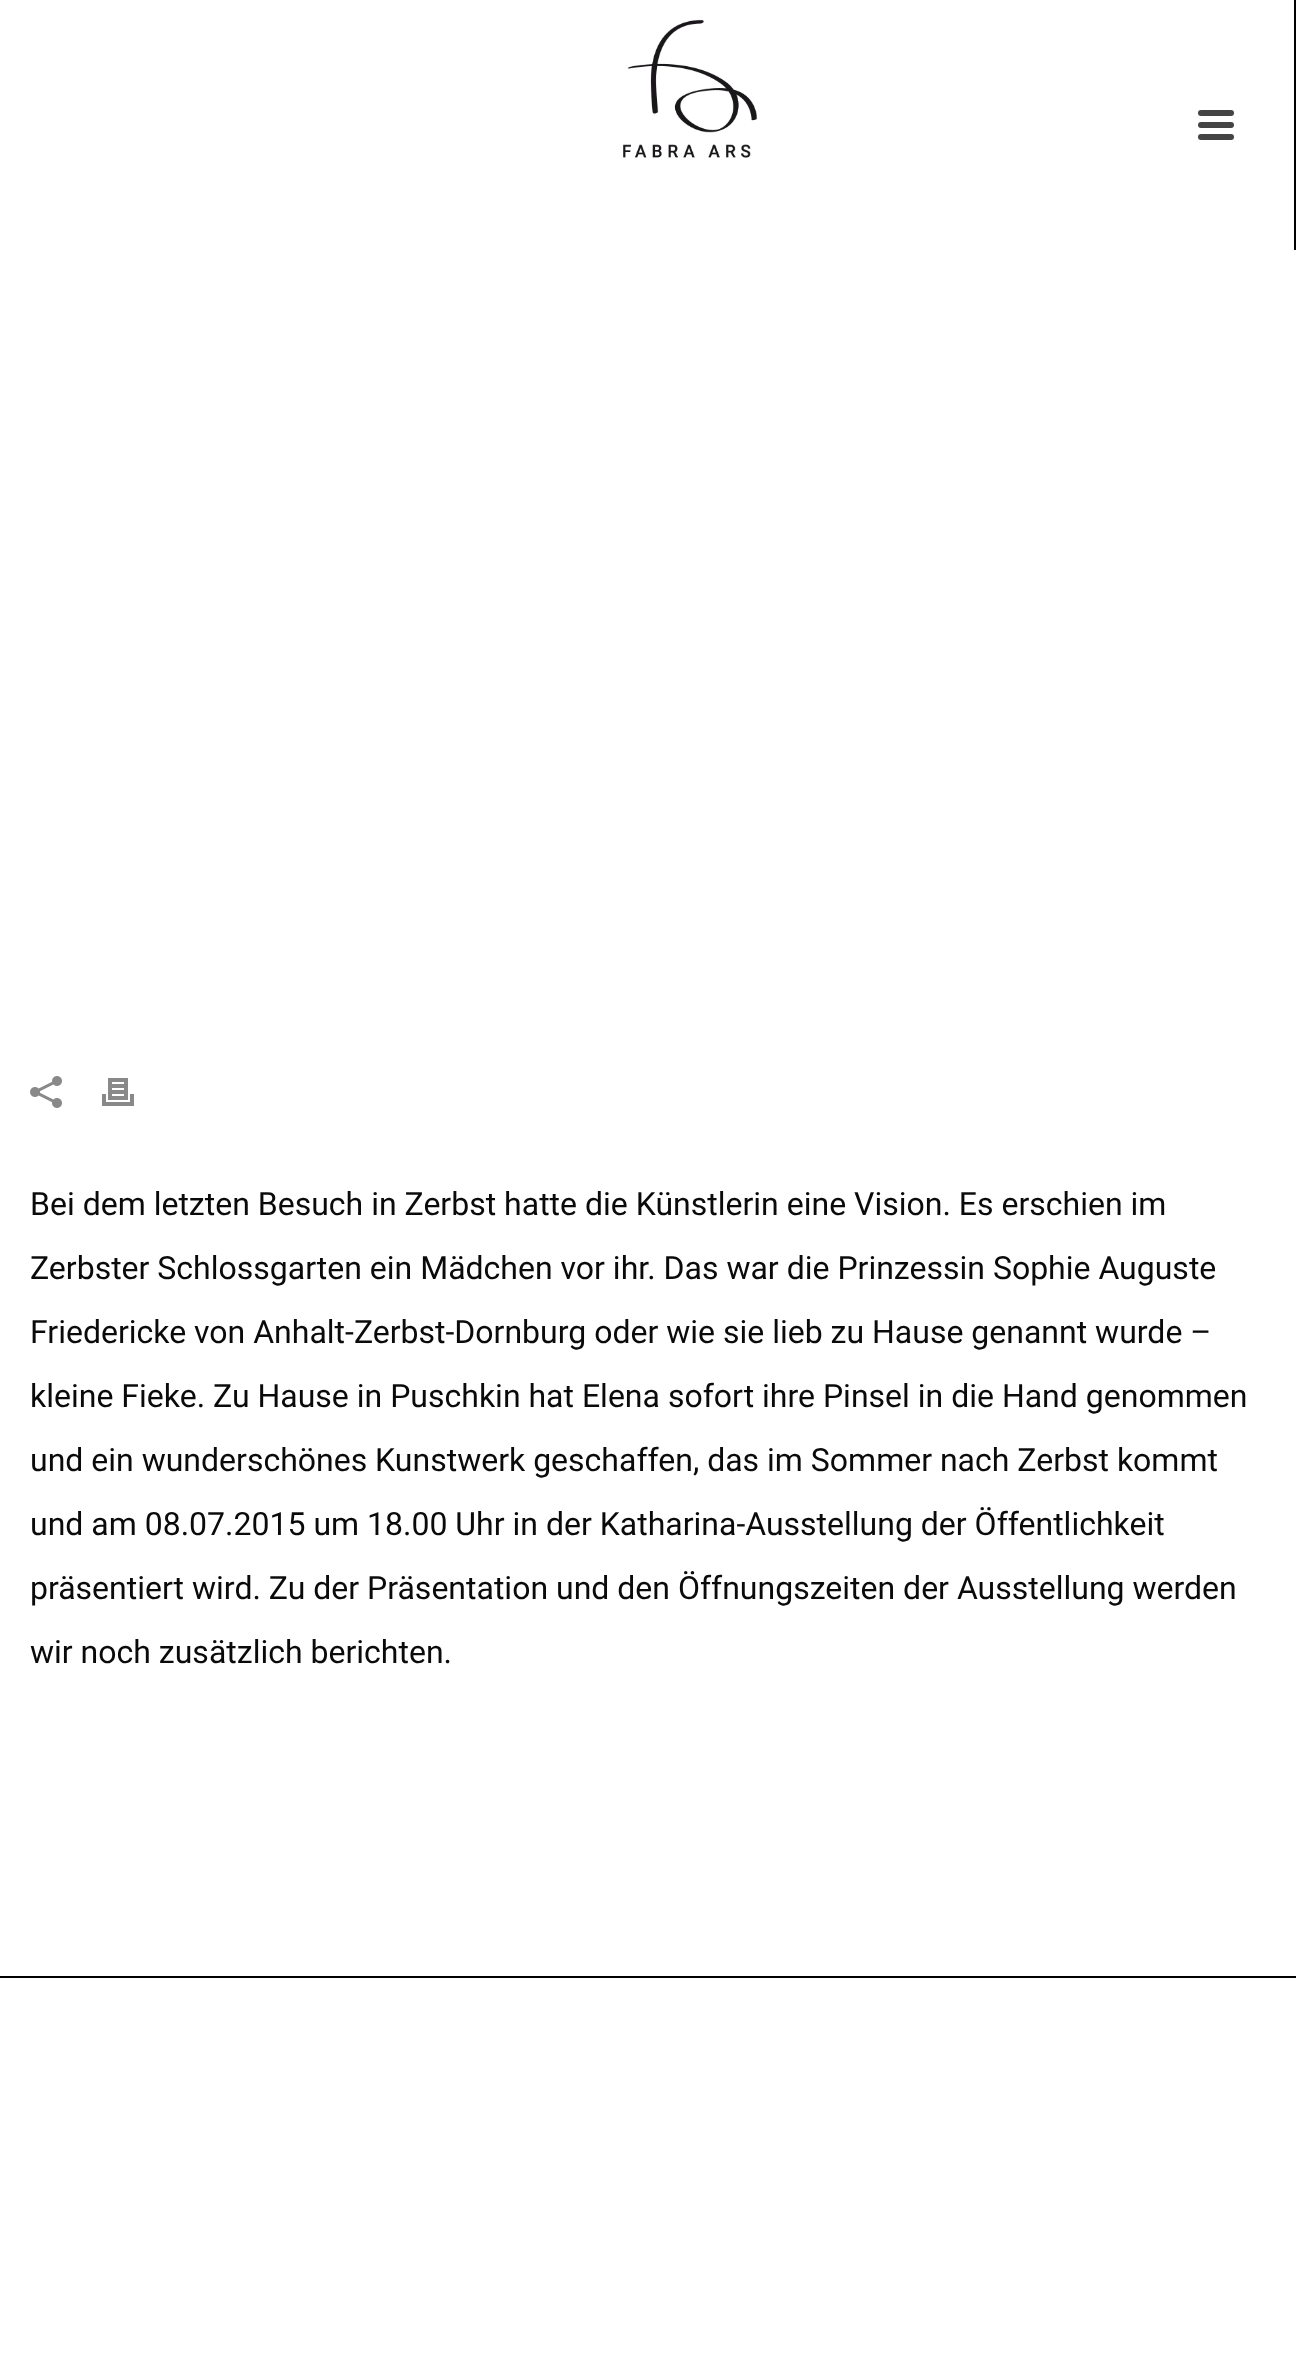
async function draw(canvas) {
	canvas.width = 1296;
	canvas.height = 2353;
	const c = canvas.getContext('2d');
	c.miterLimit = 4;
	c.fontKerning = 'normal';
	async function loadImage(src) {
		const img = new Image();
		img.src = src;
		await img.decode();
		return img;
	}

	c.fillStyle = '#fff';
	c.fillRect(0, 0, 1296, 2353);
	c.fillStyle = '#000';
	c.fillRect(1294, 0, 2, 250);
	c.drawImage(await loadImage('img1.png'), 623, 19, 134, 139);
	c.fillStyle = '#444';
	c.beginPath();
	c.roundRect(1198, 110, 36, 6, 3);
	c.fill();
	c.beginPath();
	c.roundRect(1198, 122, 36, 6, 3);
	c.fill();
	c.beginPath();
	c.roundRect(1198, 134, 36, 6, 3);
	c.fill();
	c.drawImage(await loadImage('img2.png'), 30, 1076, 32, 32);
	c.drawImage(await loadImage('img3.png'), 102, 1078, 32, 28);
	c.font = '32px Roboto';
	c.fillStyle = '#0a0a0a';
	for (const [text, x, y] of [
		['Bei dem letzten Besuch in Zerbst hatte die Künstlerin eine Vision. Es erschien im', 30, 1215],
		['Zerbster Schlossgarten ein Mädchen vor ihr. Das war die Prinzessin Sophie Auguste', 30, 1279],
		['Friedericke von Anhalt-Zerbst-Dornburg oder wie sie lieb zu Hause genannt wurde –', 30, 1343],
		['kleine Fieke. Zu Hause in Puschkin hat Elena sofort ihre Pinsel in die Hand genommen', 30, 1407],
		['und ein wunderschönes Kunstwerk geschaffen, das im Sommer nach Zerbst kommt', 30, 1471],
		['und am 08.07.2015 um 18.00 Uhr in der Katharina-Ausstellung der Öffentlichkeit', 30, 1535],
		['präsentiert wird. Zu der Präsentation und den Öffnungszeiten der Ausstellung werden', 30, 1599],
		['wir noch zusätzlich berichten.', 30, 1663],
	]) {
		c.fillText(text, x, y);
	}
	c.fillStyle = '#000';
	c.fillRect(0, 1976, 1296, 2);
}

draw(document.querySelector('canvas'));
